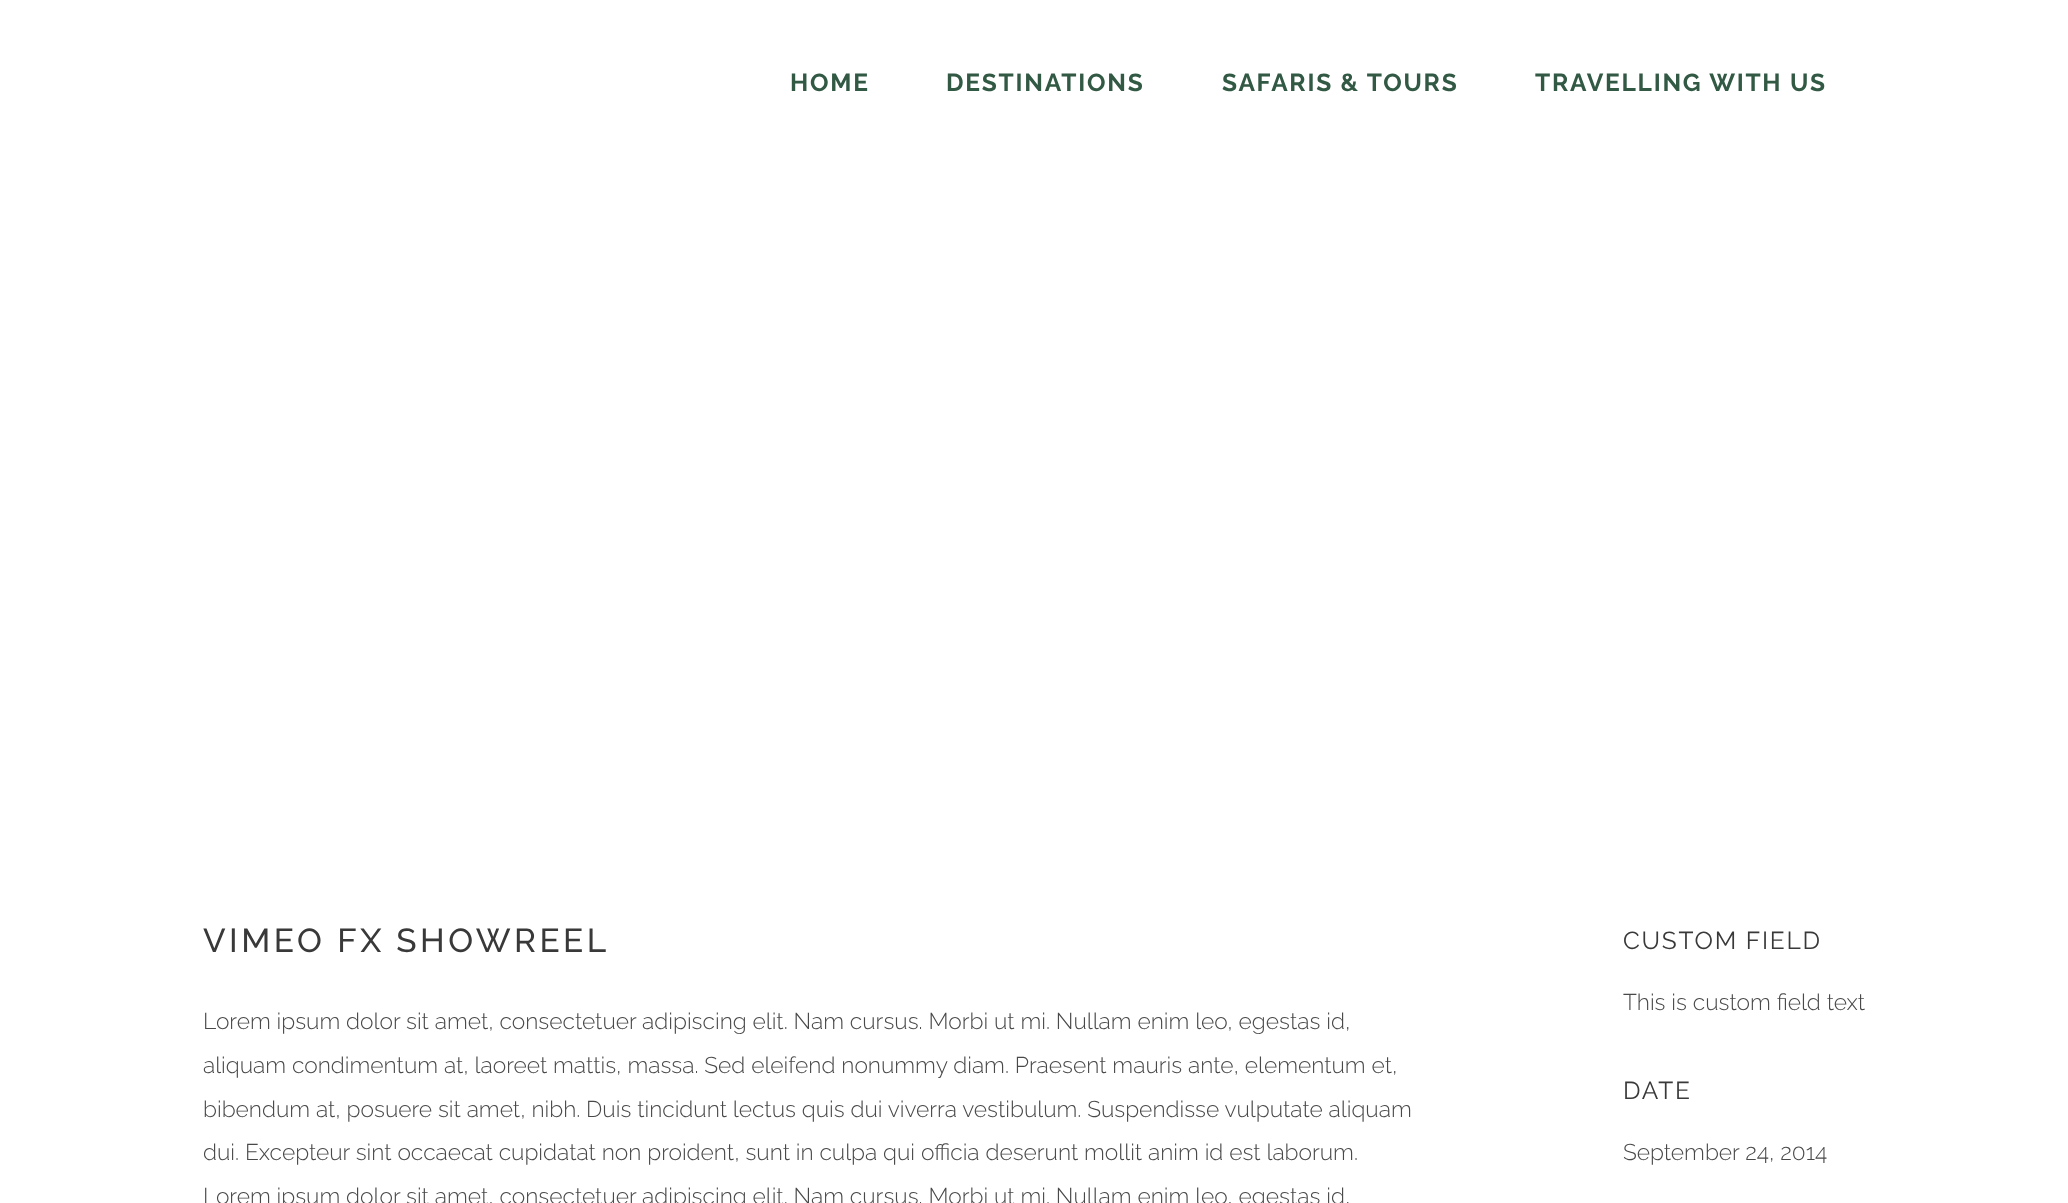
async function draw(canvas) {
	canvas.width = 2068;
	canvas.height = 1203;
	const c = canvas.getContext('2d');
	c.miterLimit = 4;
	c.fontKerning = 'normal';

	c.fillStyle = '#fff';
	c.fillRect(0, 0, 2068, 1203);
	c.letterSpacing = '1.75px';
	c.font = 'bold 24.5px Raleway';
	c.fillStyle = '#325944';
	for (const [text, x, y] of [
		['HOME', 790, 91],
		['DESTINATIONS', 946, 91],
		['SAFARIS & TOURS', 1222, 91],
		['TRAVELLING WITH US', 1535, 91],
	]) {
		c.fillText(text, x, y);
	}
	c.letterSpacing = '3.5px';
	c.font = '500 33.25px Raleway';
	c.fillStyle = '#393939';
	c.fillText('VIMEO FX SHOWREEL', 203, 952);
	c.letterSpacing = '0px';
	c.font = '300 22.75px Raleway';
	c.fillStyle = '#494949';
	for (const [text, x, y] of [
		['Lorem ipsum dolor sit amet, consectetuer adipiscing elit. Nam cursus. Morbi ut mi. Nullam enim leo, egestas id,', 203, 1029],
		['aliquam condimentum at, laoreet mattis, massa. Sed eleifend nonummy diam. Praesent mauris ante, elementum et,', 203, 1073],
		['bibendum at, posuere sit amet, nibh. Duis tincidunt lectus quis dui viverra vestibulum. Suspendisse vulputate aliquam', 203, 1117],
		['dui. Excepteur sint occaecat cupidatat non proident, sunt in culpa qui officia deserunt mollit anim id est laborum.', 203, 1160],
		['Lorem ipsum dolor sit amet, consectetuer adipiscing elit. Nam cursus. Morbi ut mi. Nullam enim leo, egestas id,', 203, 1204],
	]) {
		c.fillText(text, x, y);
	}
	c.letterSpacing = '1.75px';
	c.font = '24.5px Raleway';
	c.fillStyle = '#393939';
	c.fillText('CUSTOM FIELD', 1623, 949);
	c.letterSpacing = '0px';
	c.font = '300 22.75px Raleway';
	c.fillStyle = '#494949';
	c.fillText('This is custom field text', 1623, 1010);
	c.letterSpacing = '1.75px';
	c.font = '24.5px Raleway';
	c.fillStyle = '#393939';
	c.fillText('DATE', 1623, 1099);
	c.letterSpacing = '0px';
	c.font = '300 22.75px Raleway';
	c.fillStyle = '#494949';
	c.fillText('September 24, 2014', 1623, 1160);
}

draw(document.querySelector('canvas'));
